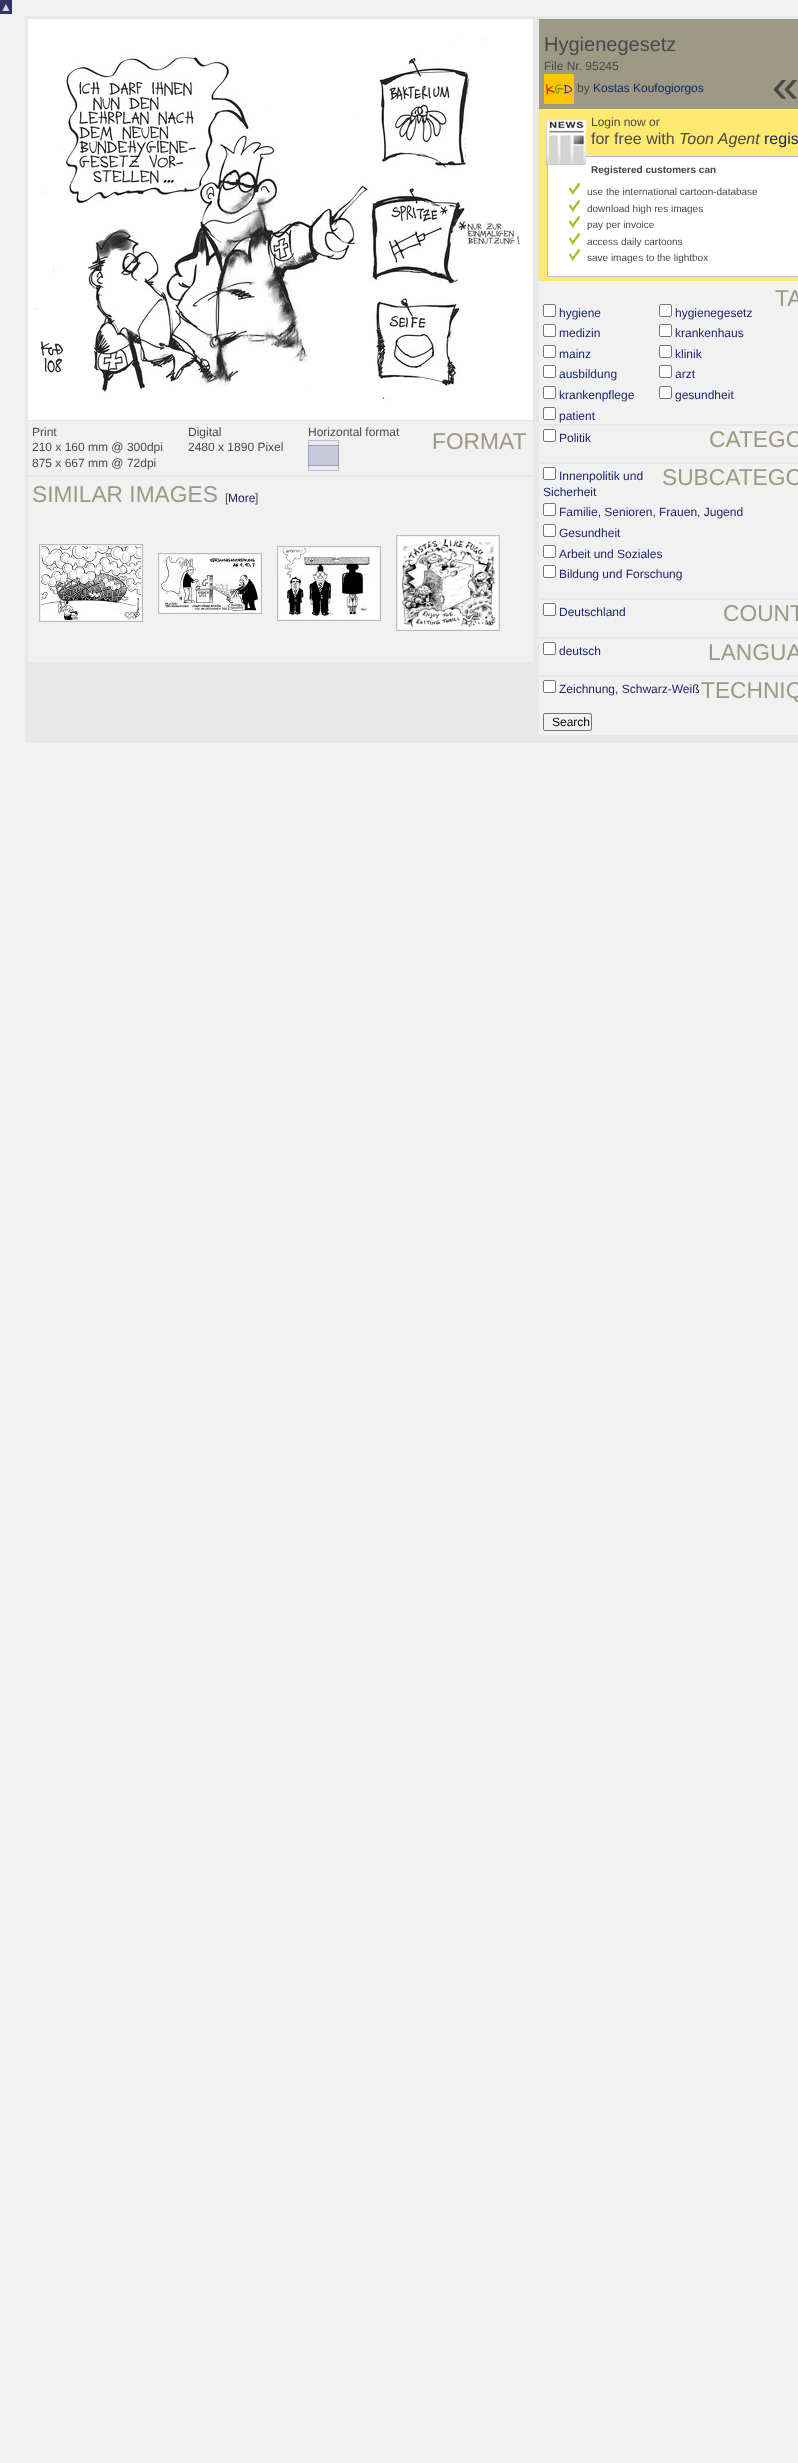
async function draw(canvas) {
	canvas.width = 798;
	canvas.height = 2463;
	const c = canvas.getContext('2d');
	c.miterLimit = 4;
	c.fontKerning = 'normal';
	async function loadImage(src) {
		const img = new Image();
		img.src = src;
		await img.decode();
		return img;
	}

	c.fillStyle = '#f1f1f1';
	c.fillRect(0, 0, 798, 2463);
	c.fillStyle = '#336';
	c.fillRect(0, 0, 12, 14);
	c.font = '12px Liberation Sans';
	c.fillStyle = '#d8d9e5';
	c.fillText('▲', 0, 11);
	c.fillStyle = '#e8e8e8';
	c.fillRect(25, 16, 773, 727);
	c.fillStyle = '#fff';
	c.fillRect(28, 19, 505, 401);
	c.drawImage(await loadImage('img1.png'), 34, 38, 487, 365);
	c.fillStyle = '#f1f1f1';
	c.fillRect(28, 421, 505, 54);
	c.fillStyle = '#494949';
	for (const [text, x, y] of [
		['Print', 32, 436],
		['210 x 160 mm @ 300dpi', 32, 451],
		['875 x 667 mm @ 72dpi', 32, 467],
		['Digital', 188, 436],
		['2480 x 1890 Pixel', 188, 451],
		['Horizontal format', 308, 436],
	]) {
		c.fillText(text, x, y);
	}
	c.drawImage(await loadImage('img2.png'), 308, 440, 31, 31);
	c.font = '22.75px Liberation Sans';
	c.fillStyle = '#9c9984';
	c.fillText('FORMAT', 432, 449);
	c.fillStyle = '#f1f1f1';
	c.fillRect(28, 477, 505, 185);
	c.fillStyle = '#9c9984';
	c.fillText('SIMILAR IMAGES', 32, 502);
	c.font = '12px Liberation Sans';
	c.fillStyle = '#494949';
	c.fillText('[', 225, 502);
	c.fillStyle = '#1d246c';
	c.fillText('More', 228, 502);
	c.fillStyle = '#494949';
	c.fillText(']', 255, 502);
	c.strokeStyle = '#bbb';
	c.strokeRect(39.5, 544.5, 103, 77);
	c.drawImage(await loadImage('img3.png'), 41, 546, 100, 74);
	c.strokeRect(158.5, 553.5, 103, 60);
	c.drawImage(await loadImage('img4.png'), 160, 555, 100, 57);
	c.strokeRect(277.5, 546.5, 103, 74);
	c.drawImage(await loadImage('img5.png'), 279, 548, 100, 71);
	c.strokeRect(396.5, 535.5, 103, 95);
	c.drawImage(await loadImage('img6.png'), 398, 537, 100, 92);
	c.fillStyle = '#9c9984';
	c.fillRect(539, 19, 259, 90);
	c.font = '20px Liberation Sans';
	c.fillStyle = '#494949';
	c.fillText('Hygienegesetz', 544, 51);
	c.font = '12px Liberation Sans';
	c.fillText('File Nr. 95245', 544, 70);
	c.drawImage(await loadImage('img7.png'), 544, 74, 30, 30);
	c.fillText('by', 577, 92);
	c.fillStyle = '#1d246c';
	c.fillText('Kostas Koufogiorgos', 593, 92);
	c.font = '48px Liberation Sans';
	c.fillStyle = '#494949';
	c.fillText('«', 772, 102);
	c.fillStyle = '#ffe970';
	c.fillRect(539, 109, 259, 172);
	c.fillStyle = '#fff';
	c.beginPath();
	c.rect(547.5, 156.5, 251, 120);
	c.fill();
	c.strokeStyle = '#b9bbd0';
	c.stroke();
	c.drawImage(await loadImage('img8.png'), 546, 120, 40, 45);
	c.font = '12px Liberation Sans';
	c.fillStyle = '#494949';
	c.fillText('Login now or', 591, 126);
	c.font = '16px Liberation Sans';
	c.fillText('for free with', 591, 144);
	c.font = 'italic 16px Liberation Sans';
	c.fillText('Toon Agent', 679, 144);
	c.font = '16px Liberation Sans';
	c.fillStyle = '#1d246c';
	c.fillText('regis', 764, 144);
	c.font = 'bold 10px Liberation Sans';
	c.fillStyle = '#494949';
	c.fillText('Registered customers can', 591, 173);
	c.drawImage(await loadImage('img9.png'), 569, 183, 11, 12);
	c.font = '10px Liberation Sans';
	c.fillText('use the international cartoon-database', 587, 195);
	c.drawImage(await loadImage('img9.png'), 569, 200, 11, 12);
	c.fillText('download high res images', 587, 212);
	c.drawImage(await loadImage('img9.png'), 569, 216, 11, 12);
	c.fillText('pay per invoice', 587, 228);
	c.drawImage(await loadImage('img9.png'), 569, 233, 11, 12);
	c.fillText('access daily cartoons', 587, 245);
	c.drawImage(await loadImage('img9.png'), 569, 249, 11, 12);
	c.fillText('save images to the lightbox', 587, 261);
	c.fillStyle = '#f1f1f1';
	c.fillRect(539, 281, 259, 454);
	c.font = '22.75px Liberation Sans';
	c.fillStyle = '#9c9984';
	c.fillText('TA', 775, 306);
	c.fillStyle = '#fff';
	c.beginPath();
	c.roundRect(543.5, 304.5, 12, 12, 1.5);
	c.fill();
	c.strokeStyle = '#767676';
	c.stroke();
	c.font = '12px Liberation Sans';
	c.fillStyle = '#1d246c';
	c.fillText('hygiene', 559, 317);
	c.fillStyle = '#fff';
	c.beginPath();
	c.roundRect(659.5, 304.5, 12, 12, 1.5);
	c.fill();
	c.stroke();
	c.fillStyle = '#1d246c';
	c.fillText('hygienegesetz', 675, 317);
	c.fillStyle = '#fff';
	c.beginPath();
	c.roundRect(543.5, 324.5, 12, 12, 1.5);
	c.fill();
	c.stroke();
	c.fillStyle = '#1d246c';
	c.fillText('medizin', 559, 337);
	c.fillStyle = '#fff';
	c.beginPath();
	c.roundRect(659.5, 324.5, 12, 12, 1.5);
	c.fill();
	c.stroke();
	c.fillStyle = '#1d246c';
	c.fillText('krankenhaus', 675, 337);
	c.fillStyle = '#fff';
	c.beginPath();
	c.roundRect(543.5, 345.5, 12, 12, 1.5);
	c.fill();
	c.stroke();
	c.fillStyle = '#1d246c';
	c.fillText('mainz', 559, 358);
	c.fillStyle = '#fff';
	c.beginPath();
	c.roundRect(659.5, 345.5, 12, 12, 1.5);
	c.fill();
	c.stroke();
	c.fillStyle = '#1d246c';
	c.fillText('klinik', 675, 358);
	c.fillStyle = '#fff';
	c.beginPath();
	c.roundRect(543.5, 365.5, 12, 12, 1.5);
	c.fill();
	c.stroke();
	c.fillStyle = '#1d246c';
	c.fillText('ausbildung', 559, 378);
	c.fillStyle = '#fff';
	c.beginPath();
	c.roundRect(659.5, 365.5, 12, 12, 1.5);
	c.fill();
	c.stroke();
	c.fillStyle = '#1d246c';
	c.fillText('arzt', 675, 378);
	c.fillStyle = '#fff';
	c.beginPath();
	c.roundRect(543.5, 386.5, 12, 12, 1.5);
	c.fill();
	c.stroke();
	c.fillStyle = '#1d246c';
	c.fillText('krankenpflege', 559, 399);
	c.fillStyle = '#fff';
	c.beginPath();
	c.roundRect(659.5, 386.5, 12, 12, 1.5);
	c.fill();
	c.stroke();
	c.fillStyle = '#1d246c';
	c.fillText('gesundheit', 675, 399);
	c.fillStyle = '#fff';
	c.beginPath();
	c.roundRect(543.5, 407.5, 12, 12, 1.5);
	c.fill();
	c.stroke();
	c.fillStyle = '#1d246c';
	c.fillText('patient', 559, 420);
	c.fillStyle = '#e8e8e8';
	c.fillRect(539, 424, 259, 2);
	c.fillStyle = '#fff';
	c.beginPath();
	c.roundRect(543.5, 429.5, 12, 12, 1.5);
	c.fill();
	c.stroke();
	c.fillStyle = '#1d246c';
	c.fillText('Politik', 559, 442);
	c.font = '22.75px Liberation Sans';
	c.fillStyle = '#9c9984';
	c.fillText('CATEGO', 709, 447);
	c.fillStyle = '#e8e8e8';
	c.fillRect(539, 462, 259, 2);
	c.fillStyle = '#fff';
	c.beginPath();
	c.roundRect(543.5, 467.5, 12, 12, 1.5);
	c.fill();
	c.stroke();
	c.font = '12px Liberation Sans';
	c.fillStyle = '#1d246c';
	c.fillText('Innenpolitik und', 559, 480);
	c.font = '22.75px Liberation Sans';
	c.fillStyle = '#9c9984';
	c.fillText('SUBCATEGO', 662, 485);
	c.font = '12px Liberation Sans';
	c.fillStyle = '#1d246c';
	c.fillText('Sicherheit', 543, 496);
	c.fillStyle = '#fff';
	c.beginPath();
	c.roundRect(543.5, 503.5, 12, 12, 1.5);
	c.fill();
	c.stroke();
	c.fillStyle = '#1d246c';
	c.fillText('Familie, Senioren, Frauen, Jugend', 559, 516);
	c.fillStyle = '#fff';
	c.beginPath();
	c.roundRect(543.5, 524.5, 12, 12, 1.5);
	c.fill();
	c.stroke();
	c.fillStyle = '#1d246c';
	c.fillText('Gesundheit', 559, 537);
	c.fillStyle = '#fff';
	c.beginPath();
	c.roundRect(543.5, 545.5, 12, 12, 1.5);
	c.fill();
	c.stroke();
	c.fillStyle = '#1d246c';
	c.fillText('Arbeit und Soziales', 559, 558);
	c.fillStyle = '#fff';
	c.beginPath();
	c.roundRect(543.5, 565.5, 12, 12, 1.5);
	c.fill();
	c.stroke();
	c.fillStyle = '#1d246c';
	c.fillText('Bildung und Forschung', 559, 578);
	c.fillStyle = '#e8e8e8';
	c.fillRect(539, 598, 259, 2);
	c.fillStyle = '#fff';
	c.beginPath();
	c.roundRect(543.5, 603.5, 12, 12, 1.5);
	c.fill();
	c.stroke();
	c.fillStyle = '#1d246c';
	c.fillText('Deutschland', 559, 616);
	c.font = '22.75px Liberation Sans';
	c.fillStyle = '#9c9984';
	c.fillText('COUNT', 723, 621);
	c.fillStyle = '#e8e8e8';
	c.fillRect(539, 637, 259, 2);
	c.fillStyle = '#fff';
	c.beginPath();
	c.roundRect(543.5, 642.5, 12, 12, 1.5);
	c.fill();
	c.stroke();
	c.font = '12px Liberation Sans';
	c.fillStyle = '#1d246c';
	c.fillText('deutsch', 559, 655);
	c.font = '22.75px Liberation Sans';
	c.fillStyle = '#9c9984';
	c.fillText('LANGUA', 708, 660);
	c.fillStyle = '#e8e8e8';
	c.fillRect(539, 675, 259, 2);
	c.fillStyle = '#fff';
	c.beginPath();
	c.roundRect(543.5, 680.5, 12, 12, 1.5);
	c.fill();
	c.stroke();
	c.font = '12px Liberation Sans';
	c.fillStyle = '#1d246c';
	c.fillText('Zeichnung, Schwarz-Weiß', 559, 693);
	c.font = '22.75px Liberation Sans';
	c.fillStyle = '#9c9984';
	c.fillText('TECHNIQ', 701, 698);
	c.beginPath();
	c.roundRect(543.5, 713.5, 48, 17, 1.5);
	c.stroke();
	c.font = '12px Liberation Sans';
	c.fillStyle = '#000';
	c.fillText('Search', 552, 726);
}

draw(document.querySelector('canvas'));
